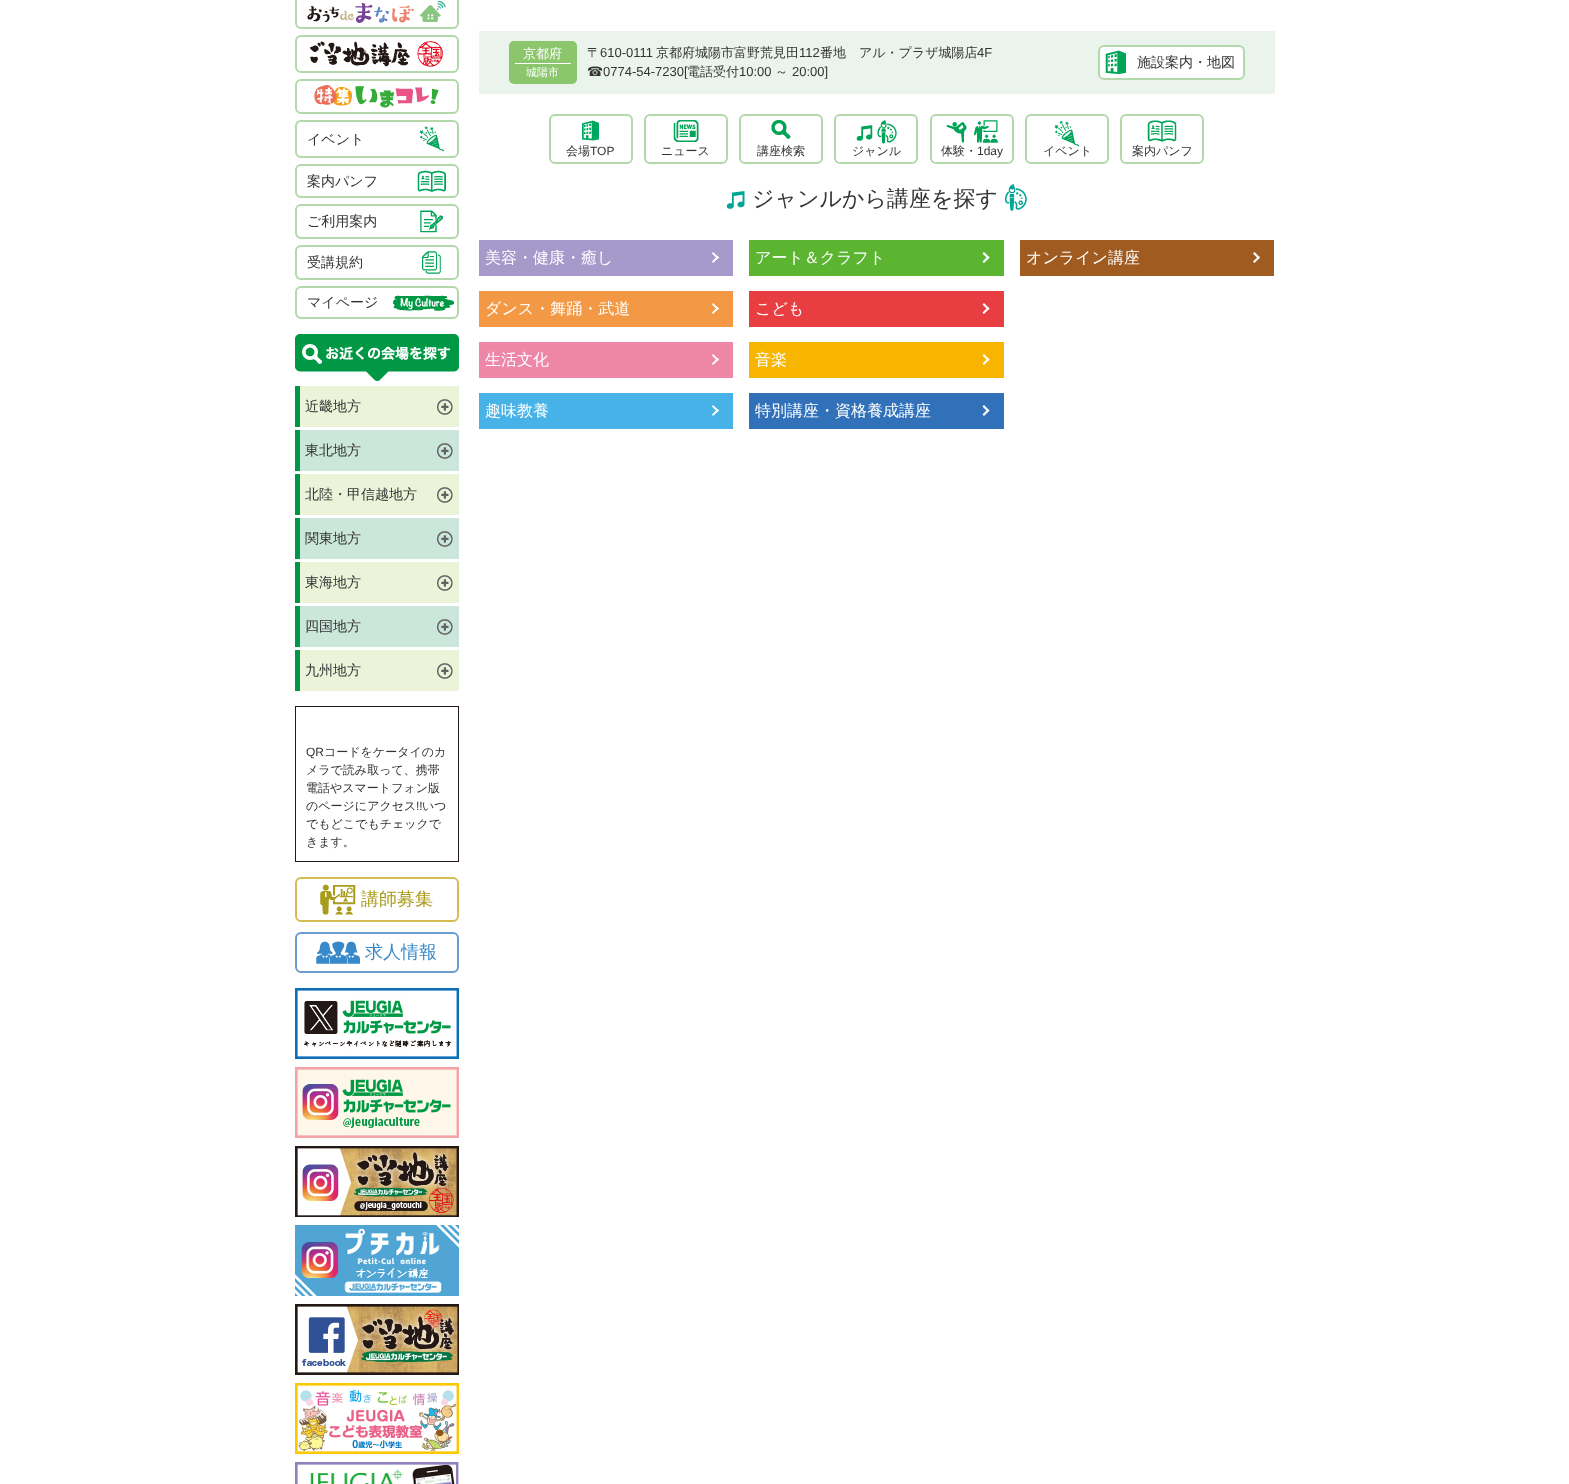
async function draw(canvas) {
	canvas.width = 1569;
	canvas.height = 1484;
	const c = canvas.getContext('2d');
	c.miterLimit = 4;
	c.fontKerning = 'normal';
	async function loadImage(src) {
		const img = new Image();
		img.src = src;
		await img.decode();
		return img;
	}

	c.fillStyle = '#fff';
	c.fillRect(0, 0, 1569, 1484);
	c.beginPath();
	c.roundRect(296, -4, 162, 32, 5);
	c.strokeStyle = '#b2d8ac';
	c.lineWidth = 2;
	c.stroke();
	c.drawImage(await loadImage('img1.png'), 307, 1, 139, 22);
	c.beginPath();
	c.roundRect(296, 36, 162, 36, 5);
	c.stroke();
	c.drawImage(await loadImage('img2.png'), 310, 41, 133, 26);
	c.beginPath();
	c.roundRect(296, 80, 162, 33, 5);
	c.stroke();
	c.drawImage(await loadImage('img3.png'), 314, 85, 125, 23);
	c.beginPath();
	c.roundRect(296, 121, 162, 36, 5);
	c.stroke();
	c.font = '500 14px WenQuanYi Zen Hei';
	c.fillStyle = '#333';
	c.fillText('イベント', 307, 144);
	c.drawImage(await loadImage('img4.png'), 419, 126, 25, 26);
	c.beginPath();
	c.roundRect(296, 165, 162, 32, 5);
	c.stroke();
	c.fillText('案内パンフ', 307, 186);
	c.drawImage(await loadImage('img5.png'), 417, 170, 29, 22);
	c.beginPath();
	c.roundRect(296, 205, 162, 33, 5);
	c.stroke();
	c.fillText('ご利用案内', 307, 226);
	c.drawImage(await loadImage('img6.png'), 420, 210, 23, 23);
	c.beginPath();
	c.roundRect(296, 246, 162, 33, 5);
	c.stroke();
	c.fillText('受講規約', 307, 267);
	c.drawImage(await loadImage('img7.png'), 422, 251, 19, 23);
	c.beginPath();
	c.roundRect(296, 287, 162, 31, 5);
	c.stroke();
	c.fillText('マイページ', 307, 307);
	c.drawImage(await loadImage('img8.png'), 393, 295, 61, 16);
	c.drawImage(await loadImage('img9.png'), 295, 334, 164, 47);
	c.fillStyle = '#ebf3d8';
	c.fillRect(300, 386, 159, 41);
	c.drawImage(await loadImage('img10.png'), 437, 399, 16, 16);
	c.fillStyle = '#009844';
	c.fillRect(295, 386, 5, 41);
	c.fillStyle = '#333';
	c.fillText('近畿地方', 305, 411);
	c.fillStyle = '#cbe6da';
	c.fillRect(300, 430, 159, 41);
	c.drawImage(await loadImage('img11.png'), 437, 443, 16, 16);
	c.fillStyle = '#009844';
	c.fillRect(295, 430, 5, 41);
	c.fillStyle = '#333';
	c.fillText('東北地方', 305, 455);
	c.fillStyle = '#ebf3d8';
	c.fillRect(300, 474, 159, 41);
	c.drawImage(await loadImage('img10.png'), 437, 487, 16, 16);
	c.fillStyle = '#009844';
	c.fillRect(295, 474, 5, 41);
	c.fillStyle = '#333';
	c.fillText('北陸・甲信越地方', 305, 499);
	c.fillStyle = '#cbe6da';
	c.fillRect(300, 518, 159, 41);
	c.drawImage(await loadImage('img11.png'), 437, 531, 16, 16);
	c.fillStyle = '#009844';
	c.fillRect(295, 518, 5, 41);
	c.fillStyle = '#333';
	c.fillText('関東地方', 305, 543);
	c.fillStyle = '#ebf3d8';
	c.fillRect(300, 562, 159, 41);
	c.drawImage(await loadImage('img10.png'), 437, 575, 16, 16);
	c.fillStyle = '#009844';
	c.fillRect(295, 562, 5, 41);
	c.fillStyle = '#333';
	c.fillText('東海地方', 305, 587);
	c.fillStyle = '#cbe6da';
	c.fillRect(300, 606, 159, 41);
	c.drawImage(await loadImage('img11.png'), 437, 619, 16, 16);
	c.fillStyle = '#009844';
	c.fillRect(295, 606, 5, 41);
	c.fillStyle = '#333';
	c.fillText('四国地方', 305, 631);
	c.fillStyle = '#ebf3d8';
	c.fillRect(300, 650, 159, 41);
	c.drawImage(await loadImage('img10.png'), 437, 663, 16, 16);
	c.fillStyle = '#009844';
	c.fillRect(295, 650, 5, 41);
	c.fillStyle = '#333';
	c.fillText('九州地方', 305, 675);
	c.strokeStyle = '#231815';
	c.lineWidth = 1;
	c.strokeRect(295.5, 706.5, 163, 155);
	c.font = '12px Liberation Sans';
	c.fillText('QR', 306, 756);
	c.font = '500 12px WenQuanYi Zen Hei';
	for (const [text, x, y] of [
		['コードをケータイのカ', 324, 756],
		['メラで読み取って、携帯', 306, 774],
		['電話やスマートフォン版', 306, 792],
		['のページにアクセス', 306, 810],
	]) {
		c.fillText(text, x, y);
	}
	c.font = '12px Liberation Sans';
	c.fillText('!!', 416, 810);
	c.font = '500 12px WenQuanYi Zen Hei';
	for (const [text, x, y] of [
		['いつ', 422, 810],
		['でもどこでもチェックで', 306, 828],
		['きます。', 306, 846],
	]) {
		c.fillText(text, x, y);
	}
	c.beginPath();
	c.roundRect(296, 878, 162, 43, 5);
	c.strokeStyle = '#d5bb52';
	c.lineWidth = 2;
	c.stroke();
	c.drawImage(await loadImage('img12.png'), 320, 884, 36, 31);
	c.font = '500 18px WenQuanYi Zen Hei';
	c.fillStyle = '#aa9c1b';
	c.fillText('講師募集', 361, 905);
	c.beginPath();
	c.roundRect(296, 933, 162, 39, 5);
	c.strokeStyle = '#6c9bd2';
	c.stroke();
	c.drawImage(await loadImage('img13.png'), 316, 941, 44, 23);
	c.fillStyle = '#3889c9';
	c.fillText('求人情報', 365, 958);
	c.drawImage(await loadImage('img14.png'), 295, 988, 164, 71);
	c.drawImage(await loadImage('img15.png'), 295, 1067, 164, 71);
	c.drawImage(await loadImage('img16.png'), 295, 1146, 164, 71);
	c.drawImage(await loadImage('img17.png'), 295, 1225, 164, 71);
	c.drawImage(await loadImage('img18.png'), 295, 1304, 164, 71);
	c.drawImage(await loadImage('img19.png'), 295, 1383, 164, 71);
	c.drawImage(await loadImage('img20.png'), 295, 1462, 164, 22);
	c.fillStyle = '#ebf4ec';
	c.fillRect(479, 31, 796, 63);
	c.fillStyle = '#8bc56c';
	c.beginPath();
	c.roundRect(509, 41, 68, 43, 5);
	c.fill();
	c.fillStyle = '#fff';
	c.fillRect(515, 63, 56, 1);
	c.font = '500 13px WenQuanYi Zen Hei';
	c.fillText('京都府', 523, 58);
	c.font = '500 11px WenQuanYi Zen Hei';
	c.fillText('城陽市', 526, 76);
	c.font = '500 13px WenQuanYi Zen Hei';
	c.fillStyle = '#333';
	c.fillText('〒', 587, 57);
	c.font = '13px Liberation Sans';
	c.fillText('610-0111', 600, 57);
	c.font = '500 13px WenQuanYi Zen Hei';
	c.fillText('京都府城陽市富野荒見田', 656, 57);
	c.font = '13px Liberation Sans';
	c.fillText('112', 799, 57);
	c.font = '500 13px WenQuanYi Zen Hei';
	c.fillText('番地　アル・プラザ城陽店', 820, 57);
	c.font = '13px Liberation Sans';
	c.fillText('4F', 977, 57);
	c.font = '13px DejaVu Sans';
	c.fillText('☎︎', 587, 76);
	c.font = '13px Liberation Sans';
	c.fillText('0774-54-7230[', 603, 76);
	c.font = '500 13px WenQuanYi Zen Hei';
	c.fillText('電話受付', 687, 76);
	c.font = '13px Liberation Sans';
	c.fillText('10:00', 739, 76);
	c.font = '500 13px WenQuanYi Zen Hei';
	c.fillText('～', 775, 76);
	c.font = '13px Liberation Sans';
	c.fillText('20:00]', 792, 76);
	c.fillStyle = '#fff';
	c.beginPath();
	c.roundRect(1098, 45, 147, 35, 6);
	c.fill();
	c.drawImage(await loadImage('img21.png'), 1105, 50, 21, 24);
	c.beginPath();
	c.roundRect(1099, 46, 145, 33, 5);
	c.strokeStyle = '#b2d8ac';
	c.stroke();
	c.font = '500 14px WenQuanYi Zen Hei';
	c.fillStyle = '#333';
	c.fillText('施設案内・地図', 1137, 67);
	c.drawImage(await loadImage('img22.png'), 582, 120, 17, 21);
	c.beginPath();
	c.roundRect(550, 115, 82, 48, 5);
	c.stroke();
	c.font = '500 12px WenQuanYi Zen Hei';
	c.fillText('会場', 566, 155);
	c.font = '12px Liberation Sans';
	c.fillText('TOP', 590, 155);
	c.drawImage(await loadImage('img23.png'), 673, 120, 26, 22);
	c.beginPath();
	c.roundRect(645, 115, 82, 48, 5);
	c.stroke();
	c.font = '500 12px WenQuanYi Zen Hei';
	c.fillText('ニュース', 661, 155);
	c.drawImage(await loadImage('img24.png'), 771, 120, 20, 19);
	c.beginPath();
	c.roundRect(740, 115, 82, 48, 5);
	c.stroke();
	c.fillText('講座検索', 757, 155);
	c.drawImage(await loadImage('img25.png'), 856, 120, 41, 24);
	c.beginPath();
	c.roundRect(835, 115, 82, 48, 5);
	c.stroke();
	c.fillText('ジャンル', 852, 155);
	c.drawImage(await loadImage('img26.png'), 946, 120, 52, 23);
	c.beginPath();
	c.roundRect(931, 115, 82, 48, 5);
	c.stroke();
	c.fillText('体験・', 941, 155);
	c.font = '12px Liberation Sans';
	c.fillText('1day', 977, 155);
	c.drawImage(await loadImage('img27.png'), 1054, 120, 26, 27);
	c.beginPath();
	c.roundRect(1026, 115, 82, 48, 5);
	c.stroke();
	c.font = '500 12px WenQuanYi Zen Hei';
	c.fillText('イベント', 1043, 155);
	c.drawImage(await loadImage('img28.png'), 1147, 120, 30, 22);
	c.beginPath();
	c.roundRect(1121, 115, 82, 48, 5);
	c.stroke();
	c.fillText('案内パンフ', 1132, 155);
	c.drawImage(await loadImage('img29.png'), 726, 191, 19, 18);
	c.font = '500 22px WenQuanYi Zen Hei';
	c.fillText('ジャンルから講座を探す', 752, 206);
	c.drawImage(await loadImage('img30.png'), 1005, 184, 22, 28);
	c.fillStyle = '#a59aca';
	c.fillRect(479, 240, 254, 36);
	c.font = '500 16px WenQuanYi Zen Hei';
	c.fillStyle = '#fff';
	c.fillText('美容・健康・癒し', 485, 263);
	c.beginPath();
	c.moveTo(713, 252);
	c.lineTo(719, 257.5);
	c.lineTo(717.5, 259);
	c.lineTo(712, 253.5);
	c.closePath();
	c.fill();
	c.fillStyle = '#f39945';
	c.fillRect(479, 291, 254, 36);
	c.fillStyle = '#fff';
	c.beginPath();
	c.moveTo(717.5, 256);
	c.lineTo(719, 257.5);
	c.lineTo(713, 263);
	c.lineTo(712, 261.5);
	c.closePath();
	c.moveTo(713, 303);
	c.lineTo(719, 308.5);
	c.lineTo(717.5, 310);
	c.lineTo(712, 304.5);
	c.closePath();
	c.fill();
	c.fillText('ダンス・舞踊・武道', 485, 314);
	c.fillStyle = '#ee86a8';
	c.fillRect(479, 342, 254, 36);
	c.fillStyle = '#fff';
	c.beginPath();
	c.moveTo(717.5, 307);
	c.lineTo(719, 308.5);
	c.lineTo(713, 314);
	c.lineTo(712, 312.5);
	c.closePath();
	c.moveTo(713, 354);
	c.lineTo(719, 359.5);
	c.lineTo(717.5, 361);
	c.lineTo(712, 355.5);
	c.closePath();
	c.fill();
	c.fillText('生活文化', 485, 365);
	c.fillStyle = '#46b2e7';
	c.fillRect(479, 393, 254, 36);
	c.fillStyle = '#fff';
	c.beginPath();
	c.moveTo(717.5, 358);
	c.lineTo(719, 359.5);
	c.lineTo(713, 365);
	c.lineTo(712, 363.5);
	c.closePath();
	c.moveTo(713, 405);
	c.lineTo(719, 410.5);
	c.lineTo(717.5, 412);
	c.lineTo(712, 406.5);
	c.closePath();
	c.fill();
	c.fillText('趣味教養', 485, 416);
	c.beginPath();
	c.moveTo(717.5, 409);
	c.lineTo(719, 410.5);
	c.lineTo(713, 416);
	c.lineTo(712, 414.5);
	c.closePath();
	c.fill();
	c.fillStyle = '#5cb531';
	c.fillRect(749, 240, 255, 36);
	c.fillStyle = '#fff';
	c.fillText('アート＆クラフト', 755, 263);
	c.beginPath();
	c.moveTo(984, 252);
	c.lineTo(989.5, 257.5);
	c.lineTo(988, 259);
	c.lineTo(982.5, 253.5);
	c.closePath();
	c.fill();
	c.fillStyle = '#e83e42';
	c.fillRect(749, 291, 255, 36);
	c.fillStyle = '#fff';
	c.beginPath();
	c.moveTo(988, 256);
	c.lineTo(989.5, 257.5);
	c.lineTo(984, 263);
	c.lineTo(982.5, 261.5);
	c.closePath();
	c.moveTo(984, 303);
	c.lineTo(989.5, 308.5);
	c.lineTo(988, 310);
	c.lineTo(982.5, 304.5);
	c.closePath();
	c.fill();
	c.fillText('こども', 755, 314);
	c.fillStyle = '#f8b500';
	c.fillRect(749, 342, 255, 36);
	c.fillStyle = '#fff';
	c.beginPath();
	c.moveTo(988, 307);
	c.lineTo(989.5, 308.5);
	c.lineTo(984, 314);
	c.lineTo(982.5, 312.5);
	c.closePath();
	c.moveTo(984, 354);
	c.lineTo(989.5, 359.5);
	c.lineTo(988, 361);
	c.lineTo(982.5, 355.5);
	c.closePath();
	c.fill();
	c.fillText('音楽', 755, 365);
	c.fillStyle = '#3071b9';
	c.fillRect(749, 393, 255, 36);
	c.fillStyle = '#fff';
	c.beginPath();
	c.moveTo(988, 358);
	c.lineTo(989.5, 359.5);
	c.lineTo(984, 365);
	c.lineTo(982.5, 363.5);
	c.closePath();
	c.moveTo(984, 405);
	c.lineTo(989.5, 410.5);
	c.lineTo(988, 412);
	c.lineTo(982.5, 406.5);
	c.closePath();
	c.fill();
	c.fillText('特別講座・資格養成講座', 755, 416);
	c.beginPath();
	c.moveTo(988, 409);
	c.lineTo(989.5, 410.5);
	c.lineTo(984, 416);
	c.lineTo(982.5, 414.5);
	c.closePath();
	c.fill();
	c.fillStyle = '#9f5b20';
	c.fillRect(1020, 240, 254, 36);
	c.fillStyle = '#fff';
	c.fillText('オンライン講座', 1026, 263);
	c.beginPath();
	c.moveTo(1254.5, 252);
	c.lineTo(1260, 257.5);
	c.lineTo(1258.5, 259);
	c.lineTo(1253, 253.5);
	c.closePath();
	c.fill();
	c.beginPath();
	c.moveTo(1258.5, 256);
	c.lineTo(1260, 257.5);
	c.lineTo(1254.5, 263);
	c.lineTo(1253, 261.5);
	c.closePath();
	c.fill();
}

draw(document.querySelector('canvas'));
